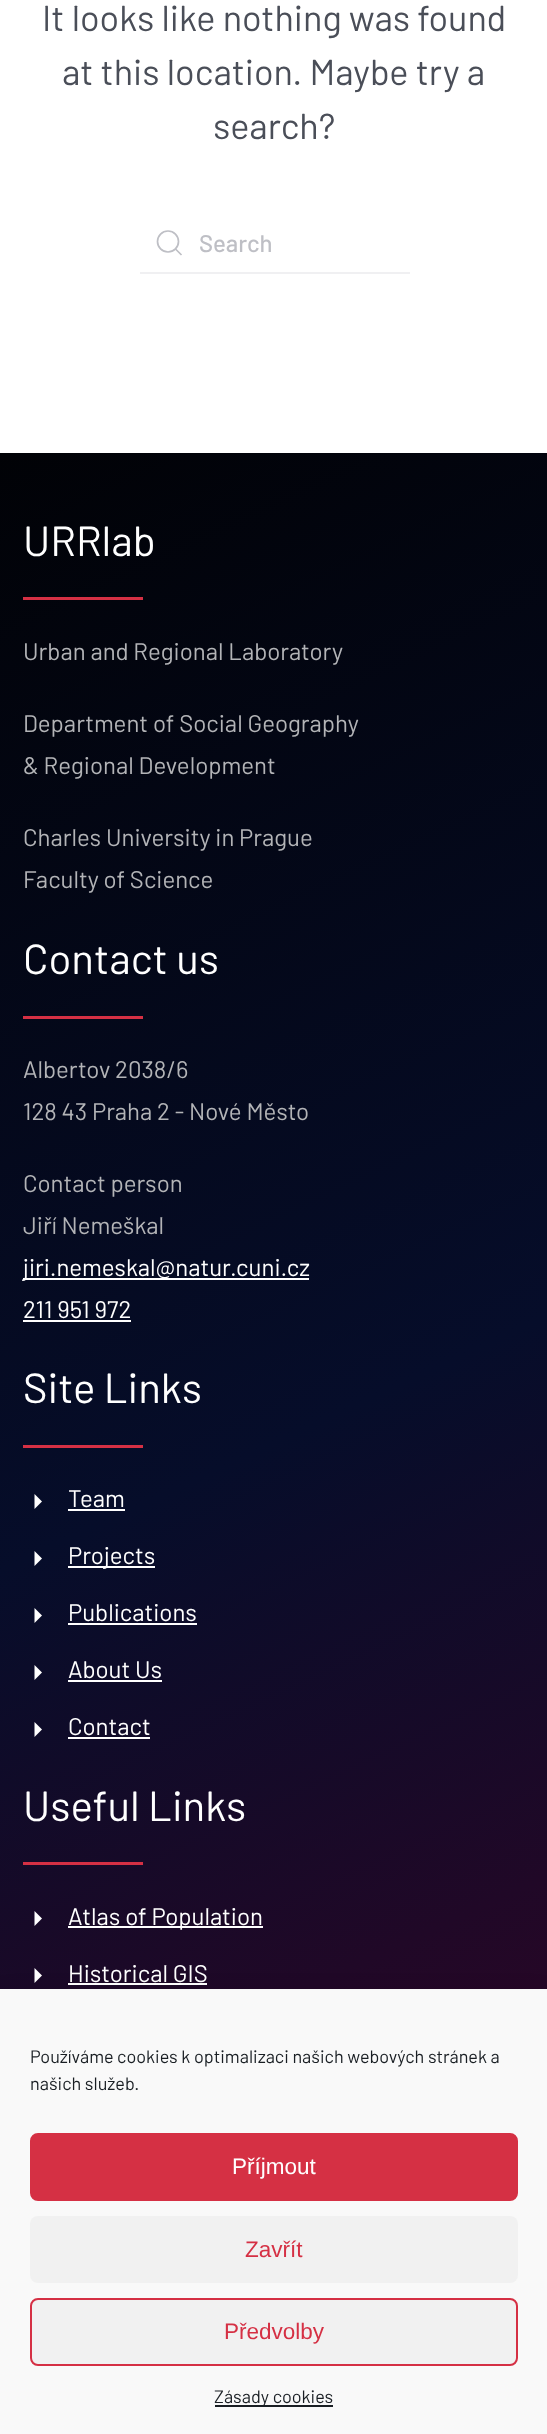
async function draw(canvas) {
	canvas.width = 547;
	canvas.height = 2434;
	const c = canvas.getContext('2d');
	c.miterLimit = 4;
	c.fontKerning = 'normal';
	let gradient;

	c.fillStyle = '#fff';
	c.fillRect(0, 0, 547, 2434);
	c.font = '36px Barlow';
	c.fillStyle = '#4a4e58';
	for (const [text, x, y] of [
		['It looks like nothing was found', 42, 31],
		['at this location. Maybe try a', 62, 85],
		['search?', 213, 139],
	]) {
		c.fillText(text, x, y);
	}
	c.beginPath();
	c.arc(168, 241.5, 10.5, 0, 2 * Math.PI);
	c.strokeStyle = '#bebfc5';
	c.lineWidth = 1.7;
	c.stroke();
	c.beginPath();
	c.moveTo(175.5, 249);
	c.lineTo(181.5, 255);
	c.closePath();
	c.stroke();
	c.fillStyle = '#f0f0f2';
	c.fillRect(140, 272, 270, 2);
	c.font = '500 24px Barlow';
	c.fillStyle = '#bebfc5';
	c.fillText('Search', 199, 252);
	gradient = c.createLinearGradient(-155, 525, 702, 2362);
	gradient.addColorStop(0, '#010206');
	gradient.addColorStop(0.5, '#060d2a');
	gradient.addColorStop(1, '#3a0324');
	c.fillStyle = gradient;
	c.fillRect(0, 453, 547, 1536);
	c.font = '42px Barlow';
	c.fillStyle = '#fff';
	c.fillText('URRlab', 23, 556);
	c.fillStyle = '#d53044';
	c.fillRect(23, 597, 120, 3);
	c.font = '24px Barlow';
	c.fillStyle = '#b3b4b7';
	for (const [text, x, y] of [
		['Urban and Regional Laboratory', 23, 660],
		['Department of Social Geography', 23, 732],
		['& Regional Development', 23, 774],
		['Charles University in Prague', 23, 846],
		['Faculty of Science', 23, 888],
	]) {
		c.fillText(text, x, y);
	}
	c.font = '42px Barlow';
	c.fillStyle = '#fff';
	c.fillText('Contact us', 23, 974);
	c.fillStyle = '#d53044';
	c.fillRect(23, 1016, 120, 3);
	c.font = '24px Barlow';
	c.fillStyle = '#b3b4b7';
	for (const [text, x, y] of [
		['Albertov 2038/6', 23, 1078],
		['128 43 Praha 2 - Nové Město', 23, 1120],
		['Contact person', 23, 1192],
		['Jiří Nemeškal', 23, 1234],
	]) {
		c.fillText(text, x, y);
	}
	c.fillStyle = '#fff';
	c.fillRect(23, 1278, 286, 2);
	c.fillText('jiri.nemeskal@natur.cuni.cz', 23, 1276);
	c.fillText('211 951 972', 23, 1318);
	c.fillRect(23, 1320, 108, 2);
	c.font = '42px Barlow';
	c.fillText('Site Links', 23, 1403);
	c.fillStyle = '#d53044';
	c.fillRect(23, 1445, 120, 3);
	c.fillStyle = '#fff';
	c.beginPath();
	c.moveTo(34.5, 1494);
	c.lineTo(42, 1501.5);
	c.lineTo(34.5, 1509);
	c.closePath();
	c.fill();
	c.font = '24px Barlow';
	c.fillText('Team', 68, 1507);
	c.fillRect(68, 1509, 57, 2);
	c.beginPath();
	c.moveTo(34.5, 1551);
	c.lineTo(42, 1558.5);
	c.lineTo(34.5, 1566);
	c.closePath();
	c.fill();
	c.fillRect(68, 1566, 87, 2);
	c.fillText('Projects', 68, 1564);
	c.beginPath();
	c.moveTo(34.5, 1608);
	c.lineTo(42, 1615.5);
	c.lineTo(34.5, 1623);
	c.closePath();
	c.fill();
	c.fillText('Publications', 68, 1621);
	c.fillRect(68, 1623, 129, 2);
	c.beginPath();
	c.moveTo(34.5, 1665);
	c.lineTo(42, 1672.5);
	c.lineTo(34.5, 1680);
	c.closePath();
	c.fill();
	c.fillText('About Us', 68, 1678);
	c.fillRect(68, 1680, 94, 2);
	c.beginPath();
	c.moveTo(34.5, 1722);
	c.lineTo(42, 1729.5);
	c.lineTo(34.5, 1737);
	c.closePath();
	c.fill();
	c.fillText('Contact', 68, 1735);
	c.fillRect(68, 1737, 82, 2);
	c.font = '42px Barlow';
	c.fillText('Useful Links', 23, 1821);
	c.fillStyle = '#d53044';
	c.fillRect(23, 1862, 120, 3);
	c.fillStyle = '#fff';
	c.beginPath();
	c.moveTo(34.5, 1911);
	c.lineTo(42, 1918.5);
	c.lineTo(34.5, 1926);
	c.closePath();
	c.fill();
	c.fillRect(68, 1926, 195, 2);
	c.font = '24px Barlow';
	c.fillText('Atlas of Population', 68, 1925);
	c.beginPath();
	c.moveTo(34.5, 1968);
	c.lineTo(42, 1975.5);
	c.lineTo(34.5, 1983);
	c.closePath();
	c.fill();
	c.fillText('Historical GIS', 68, 1982);
	c.fillRect(68, 1983, 139, 2);
	c.fillStyle = '#00000030';
	c.filter = 'blur(15px)';
	c.beginPath();
	c.rect(0, 2004, 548, 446);
	c.fill();
	c.filter = 'none';
	c.fillStyle = '#f9f9f9';
	c.fillRect(0, 1990, 547, 444);
	c.font = '18px Barlow';
	c.fillStyle = '#191e23';
	c.fillText('Používáme cookies k optimalizaci našich webových stránek a', 30, 2063);
	c.fillText('našich služeb.', 30, 2090);
	c.fillStyle = '#d53044';
	c.beginPath();
	c.roundRect(31, 2134, 486, 66, 7);
	c.fill();
	c.strokeStyle = '#d53044';
	c.lineWidth = 2;
	c.stroke();
	c.font = '22.5px Liberation Sans';
	c.fillStyle = '#fff';
	c.fillText('Příjmout', 232, 2174);
	c.fillStyle = '#f1f1f1';
	c.beginPath();
	c.roundRect(30, 2216, 488, 67, 8);
	c.fill();
	c.fillStyle = '#d53044';
	c.fillText('Zavřít', 245, 2257);
	c.fillStyle = '#f1f1f1';
	c.beginPath();
	c.roundRect(31, 2299, 486, 66, 7);
	c.fill();
	c.stroke();
	c.fillStyle = '#d53044';
	c.fillText('Předvolby', 224, 2339);
	c.fillStyle = '#191e23';
	c.fillRect(215, 2405, 118, 2);
	c.font = '18px Barlow';
	c.fillText('Zásady cookies', 214, 2403);
}

draw(document.querySelector('canvas'));
